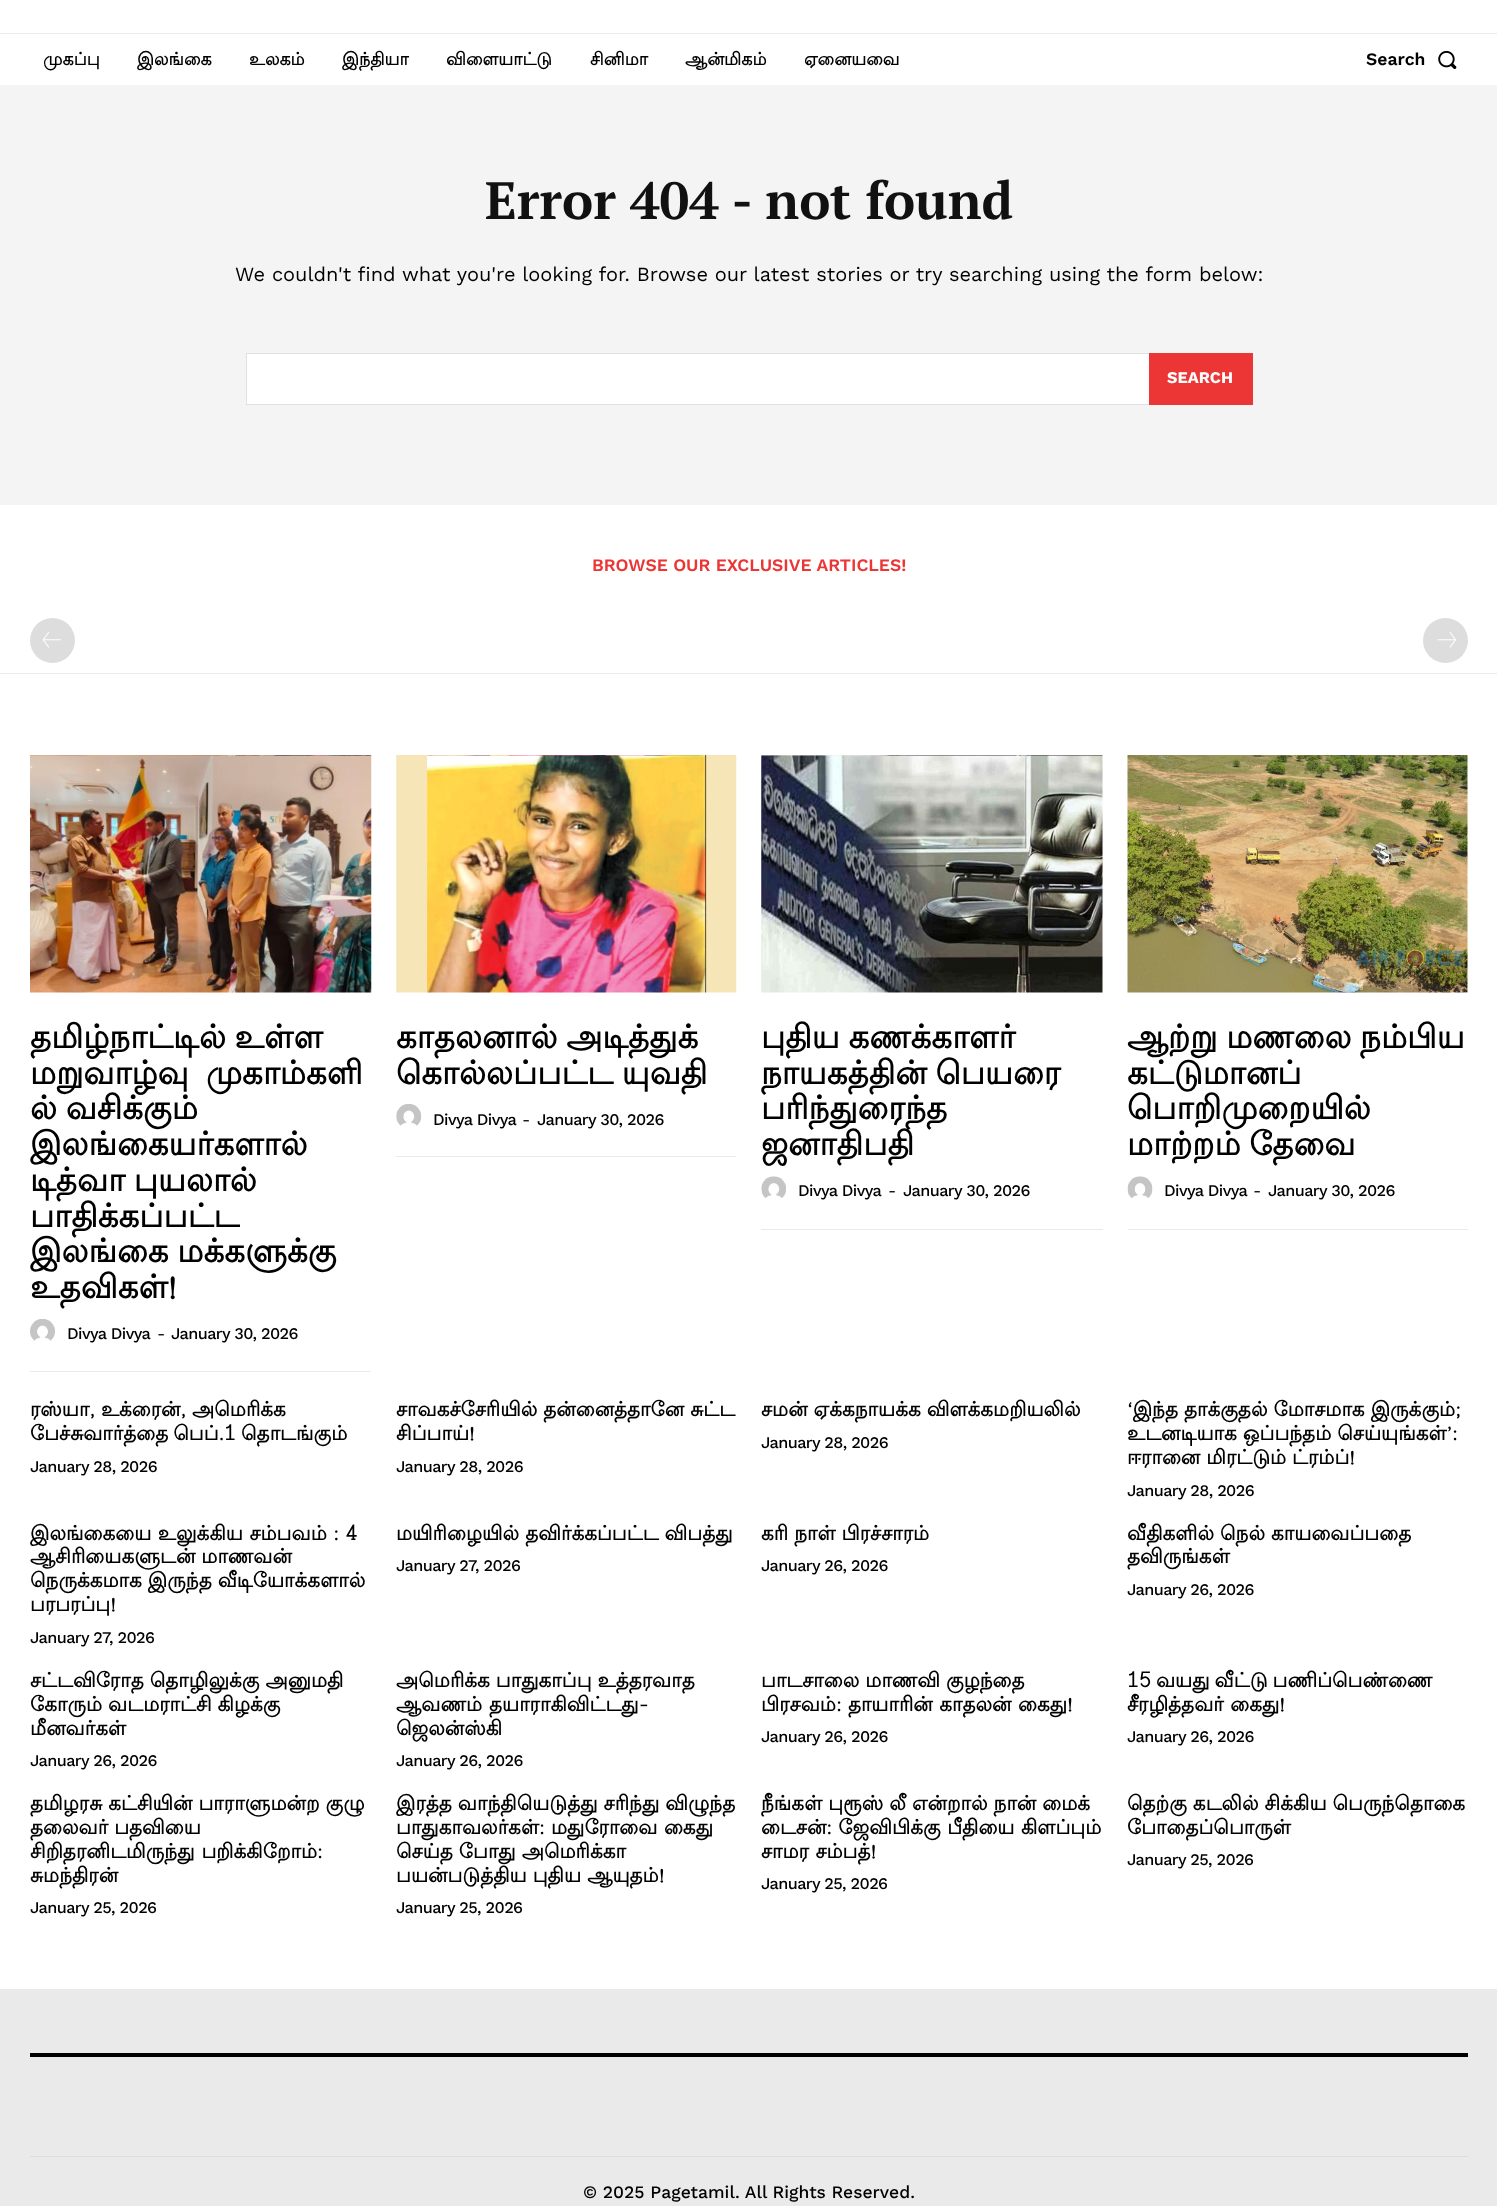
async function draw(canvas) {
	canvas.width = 1497;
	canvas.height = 2206;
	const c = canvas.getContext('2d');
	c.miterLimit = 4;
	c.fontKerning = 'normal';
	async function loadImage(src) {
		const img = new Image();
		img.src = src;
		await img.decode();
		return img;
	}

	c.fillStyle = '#fff';
	c.fillRect(0, 0, 1497, 2206);
	c.fillStyle = '#eaeaea';
	c.fillRect(0, 33, 1497, 1);
	c.font = 'bold 17.5px Lohit Tamil';
	c.fillStyle = '#000';
	for (const [text, x, y] of [
		['முகப்பு', 43, 65],
		['இலங்கை', 137, 65],
		['உலகம்', 249, 65],
		['இந்தியா', 342, 65],
		['விளையாட்டு', 446, 65],
		['சினிமா', 590, 65],
		['ஆன்மிகம்', 685, 65],
		['ஏனையவை', 804, 65],
	]) {
		c.fillText(text, x, y);
	}
	c.font = '600 17.5px Work Sans';
	c.fillText('Search', 1366, 65);
	c.drawImage(await loadImage('img1.png'), 1438, 50, 19, 19);
	c.fillStyle = '#f4f4f4';
	c.fillRect(0, 85, 1497, 420);
	c.font = 'bold 52.5px PT Serif';
	c.fillStyle = '#111';
	c.fillText('Error 404 - not found', 485, 219);
	c.font = '20px Work Sans';
	c.fillStyle = '#000';
	c.fillText('We couldn\'t find what you\'re looking for. Browse our latest stories or try searching using the form below:', 235, 281);
	c.fillStyle = '#fff';
	c.fillRect(247, 354, 902, 50);
	c.strokeStyle = '#e1e1e1';
	c.strokeRect(246.5, 353.5, 1006, 51);
	c.fillStyle = '#ec3535';
	c.fillRect(1149, 353, 104, 52);
	c.font = 'bold 16.25px Work Sans';
	c.fillStyle = '#fff';
	c.fillText('SEARCH', 1167, 383);
	c.font = '600 17.5px Work Sans';
	c.fillStyle = '#ec3535';
	c.fillText('BROWSE OUR EXCLUSIVE ARTICLES!', 592, 571);
	c.fillStyle = '#ddd';
	c.beginPath();
	c.arc(52.5, 640.5, 22.5, 0, 2 * Math.PI);
	c.fill();
	c.drawImage(await loadImage('img2.png'), 42, 632, 19, 16);
	c.beginPath();
	c.arc(1445.5, 640.5, 22.5, 0, 2 * Math.PI);
	c.fill();
	c.drawImage(await loadImage('img3.png'), 1437, 632, 19, 16);
	c.fillStyle = '#eaeaea';
	c.fillRect(0, 673, 1497, 1);
	c.fillRect(30, 1371, 341, 1);
	c.drawImage(await loadImage('img4.png'), 30, 755, 342, 238);
	c.wordSpacing = '-1px';
	c.font = 'bold 32.5px Lohit Tamil';
	c.fillStyle = '#000';
	c.fillText('தமிழ்நாட்டில் உள்ள', 30, 1048);
	c.wordSpacing = '0px';
	c.fillText('மறுவாழ்வு', 30, 1084);
	c.fillText('முகாம்களி', 206, 1084);
	c.wordSpacing = '-1px';
	c.fillText('ல் வசிக்கும்', 30, 1119);
	c.wordSpacing = '0px';
	c.fillText('இலங்கையர்களால்', 30, 1155);
	c.wordSpacing = '-1px';
	c.fillText('டித்வா புயலால்', 30, 1191);
	c.wordSpacing = '0px';
	c.fillText('பாதிக்கப்பட்ட', 30, 1227);
	c.wordSpacing = '-1px';
	c.fillText('இலங்கை மக்களுக்கு', 30, 1262);
	c.wordSpacing = '0px';
	c.fillText('உதவிகள்!', 30, 1298);
	c.drawImage(await loadImage('img5.png'), 30, 1319, 25, 22);
	c.letterSpacing = '-0.6px';
	c.font = '500 16.25px Work Sans';
	c.fillText('Divya Divya', 67, 1339);
	c.font = '16.25px Work Sans';
	c.fillText('-', 157, 1339);
	c.font = '500 16.25px Work Sans';
	c.fillText('January 30, 2026', 171, 1339);
	c.fillStyle = '#eaeaea';
	c.fillRect(396, 1156, 340, 1);
	c.drawImage(await loadImage('img6.png'), 396, 755, 341, 238);
	c.letterSpacing = '0px';
	c.wordSpacing = '-1px';
	c.font = 'bold 32.5px Lohit Tamil';
	c.fillStyle = '#000';
	c.fillText('காதலனால் அடித்துக்', 396, 1048);
	c.fillText('கொல்லப்பட்ட யுவதி', 396, 1084);
	c.drawImage(await loadImage('img7.png'), 396, 1104, 26, 22);
	c.letterSpacing = '-0.6px';
	c.wordSpacing = '0px';
	c.font = '500 16.25px Work Sans';
	c.fillText('Divya Divya', 433, 1125);
	c.font = '16.25px Work Sans';
	c.fillText('-', 522, 1125);
	c.font = '500 16.25px Work Sans';
	c.fillText('January 30, 2026', 537, 1125);
	c.fillStyle = '#eaeaea';
	c.fillRect(761, 1229, 342, 1);
	c.drawImage(await loadImage('img8.png'), 761, 755, 342, 238);
	c.letterSpacing = '0px';
	c.wordSpacing = '-1px';
	c.font = 'bold 32.5px Lohit Tamil';
	c.fillStyle = '#000';
	c.fillText('புதிய கணக்காளர்', 761, 1048);
	c.fillText('நாயகத்தின் பெயரை', 761, 1084);
	c.wordSpacing = '0px';
	c.fillText('பரிந்துரைந்த', 761, 1119);
	c.fillText('ஜனாதிபதி', 761, 1155);
	c.drawImage(await loadImage('img9.png'), 761, 1176, 25, 22);
	c.letterSpacing = '-0.6px';
	c.font = '500 16.25px Work Sans';
	c.fillText('Divya Divya', 798, 1196);
	c.font = '16.25px Work Sans';
	c.fillText('-', 888, 1196);
	c.font = '500 16.25px Work Sans';
	c.fillText('January 30, 2026', 903, 1196);
	c.fillStyle = '#eaeaea';
	c.fillRect(1128, 1229, 340, 1);
	c.drawImage(await loadImage('img10.png'), 1127, 755, 341, 238);
	c.letterSpacing = '0px';
	c.wordSpacing = '-1px';
	c.font = 'bold 32.5px Lohit Tamil';
	c.fillStyle = '#000';
	c.fillText('ஆற்று மணலை நம்பிய', 1127, 1048);
	c.wordSpacing = '0px';
	c.fillText('கட்டுமானப்', 1127, 1084);
	c.fillText('பொறிமுறையில்', 1127, 1119);
	c.wordSpacing = '-1px';
	c.fillText('மாற்றம் தேவை', 1127, 1155);
	c.drawImage(await loadImage('img11.png'), 1127, 1176, 26, 22);
	c.letterSpacing = '-0.6px';
	c.wordSpacing = '0px';
	c.font = '500 16.25px Work Sans';
	c.fillText('Divya Divya', 1164, 1196);
	c.font = '16.25px Work Sans';
	c.fillText('-', 1253, 1196);
	c.font = '500 16.25px Work Sans';
	c.fillText('January 30, 2026', 1268, 1196);
	c.letterSpacing = '0px';
	c.font = 'bold 20px Lohit Tamil';
	c.fillText('ரஸ்யா, உக்ரைன், அமெரிக்க', 30, 1416);
	c.wordSpacing = '-1px';
	c.fillText('பேச்சுவார்த்தை பெப்.1 தொடங்கும்', 30, 1440);
	c.letterSpacing = '-0.6px';
	c.wordSpacing = '0px';
	c.font = '500 16.25px Work Sans';
	c.fillText('January 28, 2026', 30, 1472);
	c.letterSpacing = '0px';
	c.font = 'bold 20px Lohit Tamil';
	c.fillText('சாவகச்சேரியில் தன்னைத்தானே சுட்ட', 396, 1416);
	c.fillText('சிப்பாய்!', 396, 1440);
	c.letterSpacing = '-0.6px';
	c.font = '500 16.25px Work Sans';
	c.fillText('January 28, 2026', 396, 1472);
	c.letterSpacing = '0px';
	c.font = 'bold 20px Lohit Tamil';
	c.fillText('சமன் ஏக்கநாயக்க விளக்கமறியலில்', 761, 1416);
	c.letterSpacing = '-0.6px';
	c.font = '500 16.25px Work Sans';
	c.fillText('January 28, 2026', 761, 1448);
	c.letterSpacing = '0px';
	c.font = 'bold 20px Lohit Tamil';
	for (const [text, x, y] of [
		['‘இந்த தாக்குதல் மோசமாக இருக்கும்;', 1127, 1416],
		['உடனடியாக ஒப்பந்தம் செய்யுங்கள்’:', 1127, 1440],
		['ஈரானை மிரட்டும் ட்ரம்ப்!', 1127, 1464],
	]) {
		c.fillText(text, x, y);
	}
	c.letterSpacing = '-0.6px';
	c.font = '500 16.25px Work Sans';
	c.fillText('January 28, 2026', 1127, 1496);
	c.letterSpacing = '0px';
	c.wordSpacing = '0.5px';
	c.font = 'bold 20px Lohit Tamil';
	c.fillText('இலங்கையை உலுக்கிய சம்பவம் : 4', 30, 1540);
	c.wordSpacing = '0px';
	for (const [text, x, y] of [
		['ஆசிரியைகளுடன் மாணவன்', 30, 1563],
		['நெருக்கமாக இருந்த வீடியோக்களால்', 30, 1587],
		['பரபரப்பு!', 30, 1611],
	]) {
		c.fillText(text, x, y);
	}
	c.letterSpacing = '-0.6px';
	c.font = '500 16.25px Work Sans';
	c.fillText('January 27, 2026', 30, 1643);
	c.letterSpacing = '0px';
	c.font = 'bold 20px Lohit Tamil';
	c.fillText('மயிரிழையில் தவிர்க்கப்பட்ட விபத்து', 396, 1540);
	c.letterSpacing = '-0.6px';
	c.font = '500 16.25px Work Sans';
	c.fillText('January 27, 2026', 396, 1571);
	c.letterSpacing = '0px';
	c.font = 'bold 20px Lohit Tamil';
	c.fillText('கரி நாள் பிரச்சாரம்', 761, 1540);
	c.letterSpacing = '-0.6px';
	c.font = '500 16.25px Work Sans';
	c.fillText('January 26, 2026', 761, 1571);
	c.letterSpacing = '0px';
	c.font = 'bold 20px Lohit Tamil';
	c.fillText('வீதிகளில் நெல் காயவைப்பதை', 1127, 1540);
	c.fillText('தவிருங்கள்', 1127, 1563);
	c.letterSpacing = '-0.6px';
	c.font = '500 16.25px Work Sans';
	c.fillText('January 26, 2026', 1127, 1595);
	c.letterSpacing = '0px';
	c.font = 'bold 20px Lohit Tamil';
	for (const [text, x, y] of [
		['சட்டவிரோத தொழிலுக்கு அனுமதி', 30, 1687],
		['கோரும் வடமராட்சி கிழக்கு', 30, 1711],
		['மீனவர்கள்', 30, 1735],
	]) {
		c.fillText(text, x, y);
	}
	c.letterSpacing = '-0.6px';
	c.font = '500 16.25px Work Sans';
	c.fillText('January 26, 2026', 30, 1766);
	c.letterSpacing = '0px';
	c.font = 'bold 20px Lohit Tamil';
	c.fillText('அமெரிக்க பாதுகாப்பு உத்தரவாத', 396, 1687);
	c.wordSpacing = '1px';
	c.fillText('ஆவணம் தயாராகிவிட்டது-', 396, 1711);
	c.wordSpacing = '0px';
	c.fillText('ஜெலன்ஸ்கி', 396, 1735);
	c.letterSpacing = '-0.6px';
	c.font = '500 16.25px Work Sans';
	c.fillText('January 26, 2026', 396, 1766);
	c.letterSpacing = '0px';
	c.font = 'bold 20px Lohit Tamil';
	c.fillText('பாடசாலை மாணவி குழந்தை', 761, 1687);
	c.wordSpacing = '0.5px';
	c.fillText('பிரசவம்: தாயாரின் காதலன் கைது!', 761, 1711);
	c.letterSpacing = '-0.6px';
	c.wordSpacing = '0px';
	c.font = '500 16.25px Work Sans';
	c.fillText('January 26, 2026', 761, 1742);
	c.letterSpacing = '0px';
	c.wordSpacing = '-1px';
	c.font = 'bold 20px Lohit Tamil';
	c.fillText('15 வயது வீட்டு பணிப்பெண்ணை', 1127, 1687);
	c.wordSpacing = '0.5px';
	c.fillText('சீரழித்தவர் கைது!', 1127, 1711);
	c.letterSpacing = '-0.6px';
	c.wordSpacing = '0px';
	c.font = '500 16.25px Work Sans';
	c.fillText('January 26, 2026', 1127, 1742);
	c.letterSpacing = '0px';
	c.font = 'bold 20px Lohit Tamil';
	c.fillText('தமிழரசு கட்சியின் பாராளுமன்ற குழு', 30, 1810);
	c.fillText('தலைவர் பதவியை', 30, 1834);
	c.wordSpacing = '1px';
	c.fillText('சிறிதரனிடமிருந்து பறிக்கிறோம்:', 30, 1858);
	c.wordSpacing = '0px';
	c.fillText('சுமந்திரன்', 30, 1882);
	c.letterSpacing = '-0.6px';
	c.font = '500 16.25px Work Sans';
	c.fillText('January 25, 2026', 30, 1913);
	c.letterSpacing = '0px';
	c.font = 'bold 20px Lohit Tamil';
	c.fillText('இரத்த வாந்தியெடுத்து சரிந்து விழுந்த', 396, 1810);
	c.wordSpacing = '0.5px';
	c.fillText('பாதுகாவலர்கள்: மதுரோவை கைது', 396, 1834);
	c.wordSpacing = '0px';
	c.fillText('செய்த போது அமெரிக்கா', 396, 1858);
	c.fillText('பயன்படுத்திய புதிய ஆயுதம்!', 396, 1882);
	c.letterSpacing = '-0.6px';
	c.font = '500 16.25px Work Sans';
	c.fillText('January 25, 2026', 396, 1913);
	c.letterSpacing = '0px';
	c.font = 'bold 20px Lohit Tamil';
	c.fillText('நீங்கள் புரூஸ் லீ என்றால் நான் மைக்', 761, 1810);
	c.wordSpacing = '0.5px';
	c.fillText('டைசன்: ஜேவிபிக்கு பீதியை கிளப்பும்', 761, 1834);
	c.fillText('சாமர சம்பத்!', 761, 1858);
	c.letterSpacing = '-0.6px';
	c.wordSpacing = '0px';
	c.font = '500 16.25px Work Sans';
	c.fillText('January 25, 2026', 761, 1889);
	c.letterSpacing = '0px';
	c.font = 'bold 20px Lohit Tamil';
	c.fillText('தெற்கு கடலில் சிக்கிய பெருந்தொகை', 1127, 1810);
	c.fillText('போதைப்பொருள்', 1127, 1834);
	c.letterSpacing = '-0.6px';
	c.font = '500 16.25px Work Sans';
	c.fillText('January 25, 2026', 1127, 1865);
	for (const [x, y, w, h, color] of [
		[0, 1989, 1497, 217, '#eaeaea'],
		[30, 2053, 1438, 4, '#000'],
		[30, 2156, 1438, 1, '#ddd'],
	]) {
		c.fillStyle = color;
		c.fillRect(x, y, w, h);
	}
	c.letterSpacing = '0px';
	c.font = '500 17.5px Work Sans';
	c.fillStyle = '#000';
	c.fillText('© 2025 Pagetamil. All Rights Reserved.', 583, 2198);
}

draw(document.querySelector('canvas'));
